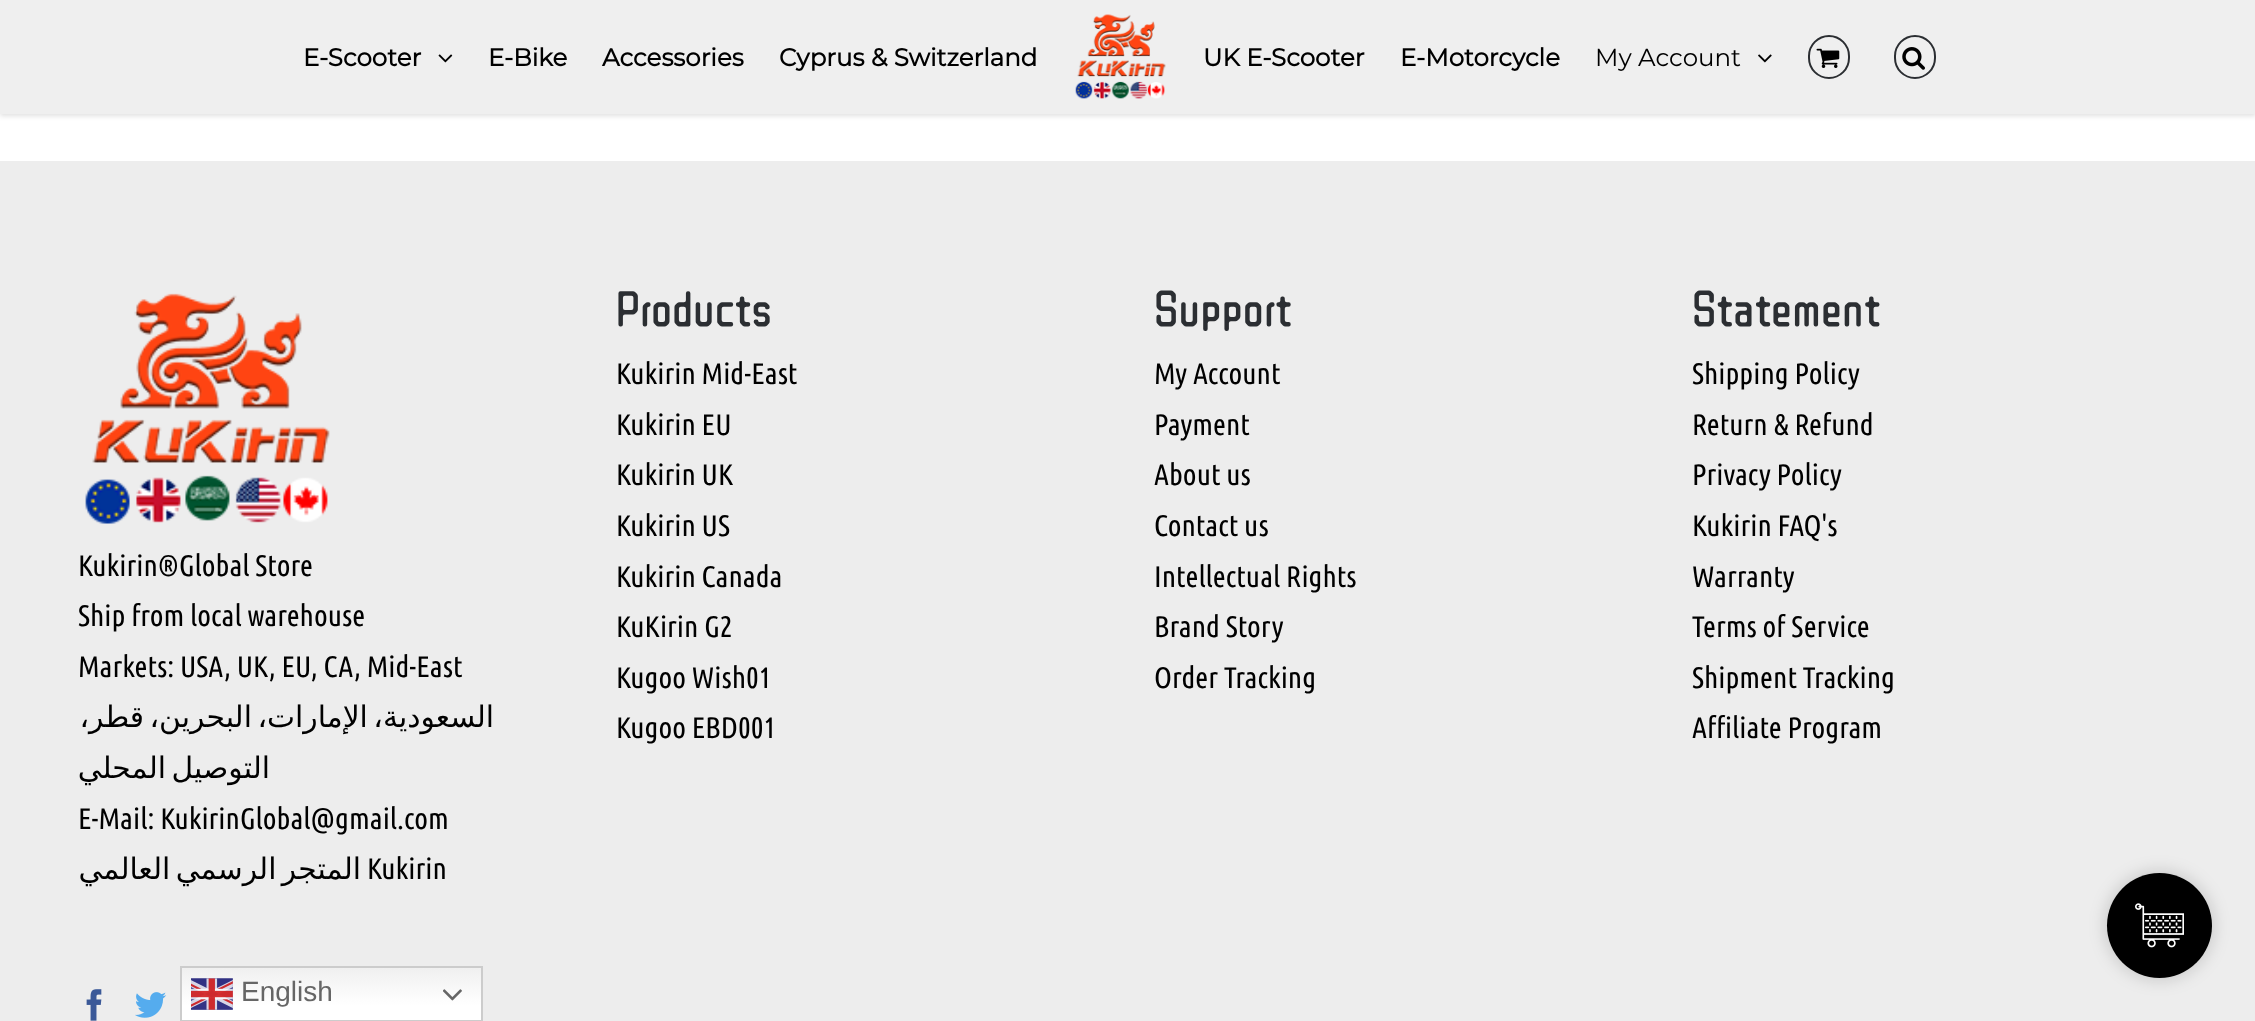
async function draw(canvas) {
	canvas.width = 2255;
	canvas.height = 1021;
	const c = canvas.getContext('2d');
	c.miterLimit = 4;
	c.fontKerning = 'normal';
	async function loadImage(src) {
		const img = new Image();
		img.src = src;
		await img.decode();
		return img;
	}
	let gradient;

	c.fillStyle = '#fff';
	c.fillRect(0, 0, 2255, 1021);
	c.fillStyle = '#eaeaea';
	c.fillRect(79, 2, 2100, 2);
	c.save();
	c.beginPath();
	c.moveTo(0, 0);
	c.lineTo(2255, 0);
	c.lineTo(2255, 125);
	c.lineTo(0, 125);
	c.closePath();
	c.moveTo(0, 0);
	c.lineTo(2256, 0);
	c.lineTo(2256, 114);
	c.lineTo(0, 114);
	c.closePath();
	c.clip('evenodd');
	c.fillStyle = '#0000001f';
	c.filter = 'blur(2.5px)';
	c.beginPath();
	c.rect(0, 2, 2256, 114);
	c.fill();
	c.filter = 'none';
	c.restore();
	c.fillStyle = '#efefeffc';
	c.fillRect(0, 0, 2255, 114);
	c.font = 'bold 24.5px Montserrat';
	c.fillStyle = '#000';
	c.fillText('E-Scooter', 303, 66);
	c.drawImage(await loadImage('img1.png'), 438, 54, 15, 9);
	for (const [text, x, y] of [
		['E-Bike', 488, 66],
		['Accessories', 602, 66],
		['Cyprus & Switzerland', 779, 66],
	]) {
		c.fillText(text, x, y);
	}
	c.drawImage(await loadImage('img2.png'), 1075, 14, 91, 85);
	c.fillText('UK E-Scooter', 1203, 66);
	c.fillText('E-Motorcycle', 1400, 66);
	c.font = '24.5px Montserrat';
	c.fillText('My Account', 1595, 66);
	c.drawImage(await loadImage('img3.png'), 1758, 54, 14, 9);
	c.beginPath();
	c.roundRect(1809, 36, 40, 42, 20);
	c.strokeStyle = '#2b2e32';
	c.lineWidth = 2;
	c.stroke();
	c.drawImage(await loadImage('img4.png'), 1816, 48, 24, 20);
	c.beginPath();
	c.roundRect(1895, 36, 40, 42, 20);
	c.stroke();
	c.drawImage(await loadImage('img5.png'), 1902, 47, 23, 23);
	c.fillStyle = '#ededed';
	c.fillRect(0, 161, 2255, 860);
	c.drawImage(await loadImage('img6.png'), 85, 293, 245, 231);
	c.font = '29.75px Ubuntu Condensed';
	c.fillStyle = '#000';
	for (const [text, x, y] of [
		['Kukirin®Global Store', 78, 576],
		['Ship from local warehouse', 78, 626],
		['Markets: USA, UK, EU, CA, Mid-East', 78, 677],
	]) {
		c.fillText(text, x, y);
	}
	c.wordSpacing = '-4px';
	c.direction = 'rtl';
	c.font = '29.75px DejaVu Sans';
	c.fillText('السعودية، الإمارات، البحرين، قطر،', 494, 727);
	c.fillText('التوصيل المحلي', 270, 778);
	c.wordSpacing = '0px';
	c.direction = 'ltr';
	c.font = '29.75px Ubuntu Condensed';
	c.fillText('E-Mail: KukirinGlobal@gmail.com', 78, 829);
	c.wordSpacing = '-4px';
	c.direction = 'rtl';
	c.font = '29.75px DejaVu Sans';
	c.fillText('المتجر الرسمي العالمي', 361, 879);
	c.wordSpacing = '0px';
	c.direction = 'ltr';
	c.font = '29.75px Ubuntu Condensed';
	c.fillText('Kukirin', 367, 879);
	c.drawImage(await loadImage('img7.png'), 86, 989, 16, 32);
	c.drawImage(await loadImage('img8.png'), 135, 992, 32, 26);
	c.font = '49px ZCOOL QingKe HuangYou';
	c.fillStyle = '#2b2e32';
	c.fillText('Products', 616, 326);
	c.font = '29.75px Ubuntu Condensed';
	c.fillStyle = '#000';
	for (const [text, x, y] of [
		['Kukirin Mid-East', 616, 384],
		['Kukirin EU', 616, 435],
		['Kukirin UK', 616, 485],
		['Kukirin US', 616, 536],
		['Kukirin Canada', 616, 587],
		['KuKirin G2', 616, 637],
		['Kugoo Wish01', 616, 688],
		['Kugoo EBD001', 616, 738],
	]) {
		c.fillText(text, x, y);
	}
	c.font = '49px ZCOOL QingKe HuangYou';
	c.fillStyle = '#2b2e32';
	c.fillText('Support', 1154, 326);
	c.font = '29.75px Ubuntu Condensed';
	c.fillStyle = '#000';
	for (const [text, x, y] of [
		['My Account', 1154, 384],
		['Payment', 1154, 435],
		['About us', 1154, 485],
		['Contact us', 1154, 536],
		['Intellectual Rights', 1154, 587],
		['Brand Story', 1154, 637],
		['Order Tracking', 1154, 688],
	]) {
		c.fillText(text, x, y);
	}
	c.font = '49px ZCOOL QingKe HuangYou';
	c.fillStyle = '#2b2e32';
	c.fillText('Statement', 1692, 326);
	c.font = '29.75px Ubuntu Condensed';
	c.fillStyle = '#000';
	for (const [text, x, y] of [
		['Shipping Policy', 1692, 384],
		['Return & Refund', 1692, 435],
		['Privacy Policy', 1692, 485],
		['Kukirin FAQ\'s', 1692, 536],
		['Warranty', 1692, 587],
		['Terms of Service', 1692, 637],
		['Shipment Tracking', 1692, 688],
		['Affiliate Program', 1692, 738],
	]) {
		c.fillText(text, x, y);
	}
	gradient = c.createLinearGradient(332, 966, 332, 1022);
	gradient.addColorStop(0, '#efefef');
	gradient.addColorStop(0.7, '#fff');
	c.fillStyle = gradient;
	c.fillRect(182, 968, 299, 52);
	c.strokeStyle = '#ccc';
	c.strokeRect(181, 967, 301, 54);
	c.drawImage(await loadImage('img9.png'), 191, 978, 42, 32);
	c.font = '28px Liberation Sans';
	c.fillStyle = '#666';
	c.fillText('English', 241, 1001);
	c.drawImage(await loadImage('img10.png'), 443, 989, 19, 12);
	c.fillStyle = '#00000030';
	c.filter = 'blur(9px)';
	c.beginPath();
	c.roundRect(2107, 873, 105, 105, 52.5);
	c.fill();
	c.filter = 'none';
	c.fillStyle = '#000';
	c.beginPath();
	c.arc(2159.5, 925.5, 52.5, 0, 2 * Math.PI);
	c.fill();
	c.drawImage(await loadImage('img11.png'), 2135, 903, 49, 45);
}

draw(document.querySelector('canvas'));
